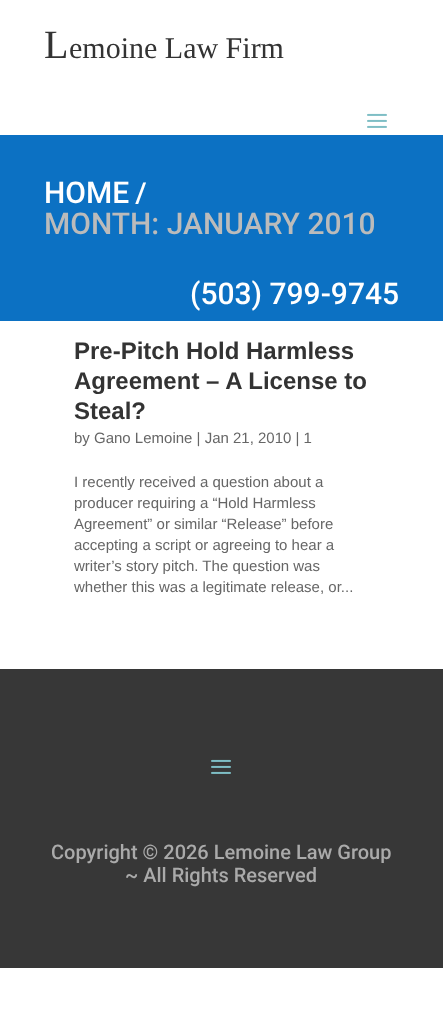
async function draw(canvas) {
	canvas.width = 443;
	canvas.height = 1025;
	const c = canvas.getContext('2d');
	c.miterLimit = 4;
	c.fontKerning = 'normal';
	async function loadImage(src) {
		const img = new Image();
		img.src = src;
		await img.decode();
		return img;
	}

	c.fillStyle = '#fff';
	c.fillRect(0, 0, 443, 1025);
	c.font = '40px Liberation Serif';
	c.fillStyle = '#333';
	c.fillText('L', 44, 58);
	c.font = '30px Liberation Serif';
	c.fillText('emoine Law Firm', 69, 58);
	c.drawImage(await loadImage('img1.png'), 367, 113, 20, 15);
	c.fillStyle = '#0c71c3';
	c.fillRect(0, 135, 443, 186);
	c.font = '500 30px Roboto';
	c.fillStyle = '#fff';
	c.fillText('HOME', 44, 203);
	c.font = '500 30px Open Sans';
	c.fillText('/', 135, 204);
	c.font = '500 30px Roboto';
	c.fillStyle = '#bbb';
	c.fillText('MONTH: JANUARY 2010', 44, 234);
	c.fillStyle = '#fff';
	c.fillText('(503) 799-9745', 190, 304);
	c.font = 'bold 24px Liberation Sans';
	c.fillStyle = '#333';
	for (const [text, x, y] of [
		['Pre-Pitch Hold Harmless', 74, 359],
		['Agreement – A License to', 74, 389],
		['Steal?', 74, 419],
	]) {
		c.fillText(text, x, y);
	}
	c.font = '15px Liberation Sans';
	c.fillStyle = '#666';
	for (const [text, x, y] of [
		['by Gano Lemoine | Jan 21, 2010 | 1', 74, 443],
		['I recently received a question about a', 74, 487],
		['producer requiring a “Hold Harmless', 74, 508],
		['Agreement” or similar “Release” before', 74, 529],
		['accepting a script or agreeing to hear a', 74, 550],
		['writer’s story pitch. The question was', 74, 571],
		['whether this was a legitimate release, or...', 74, 592],
	]) {
		c.fillText(text, x, y);
	}
	c.fillStyle = '#373737';
	c.fillRect(0, 669, 443, 299);
	c.drawImage(await loadImage('img2.png'), 211, 759, 20, 15);
	c.font = '500 20px Roboto';
	c.fillStyle = '#aaa';
	c.fillText('Copyright © 2026 Lemoine Law Group', 51, 859);
	c.fillText('~ All Rights Reserved', 125, 882);
}

draw(document.querySelector('canvas'));
